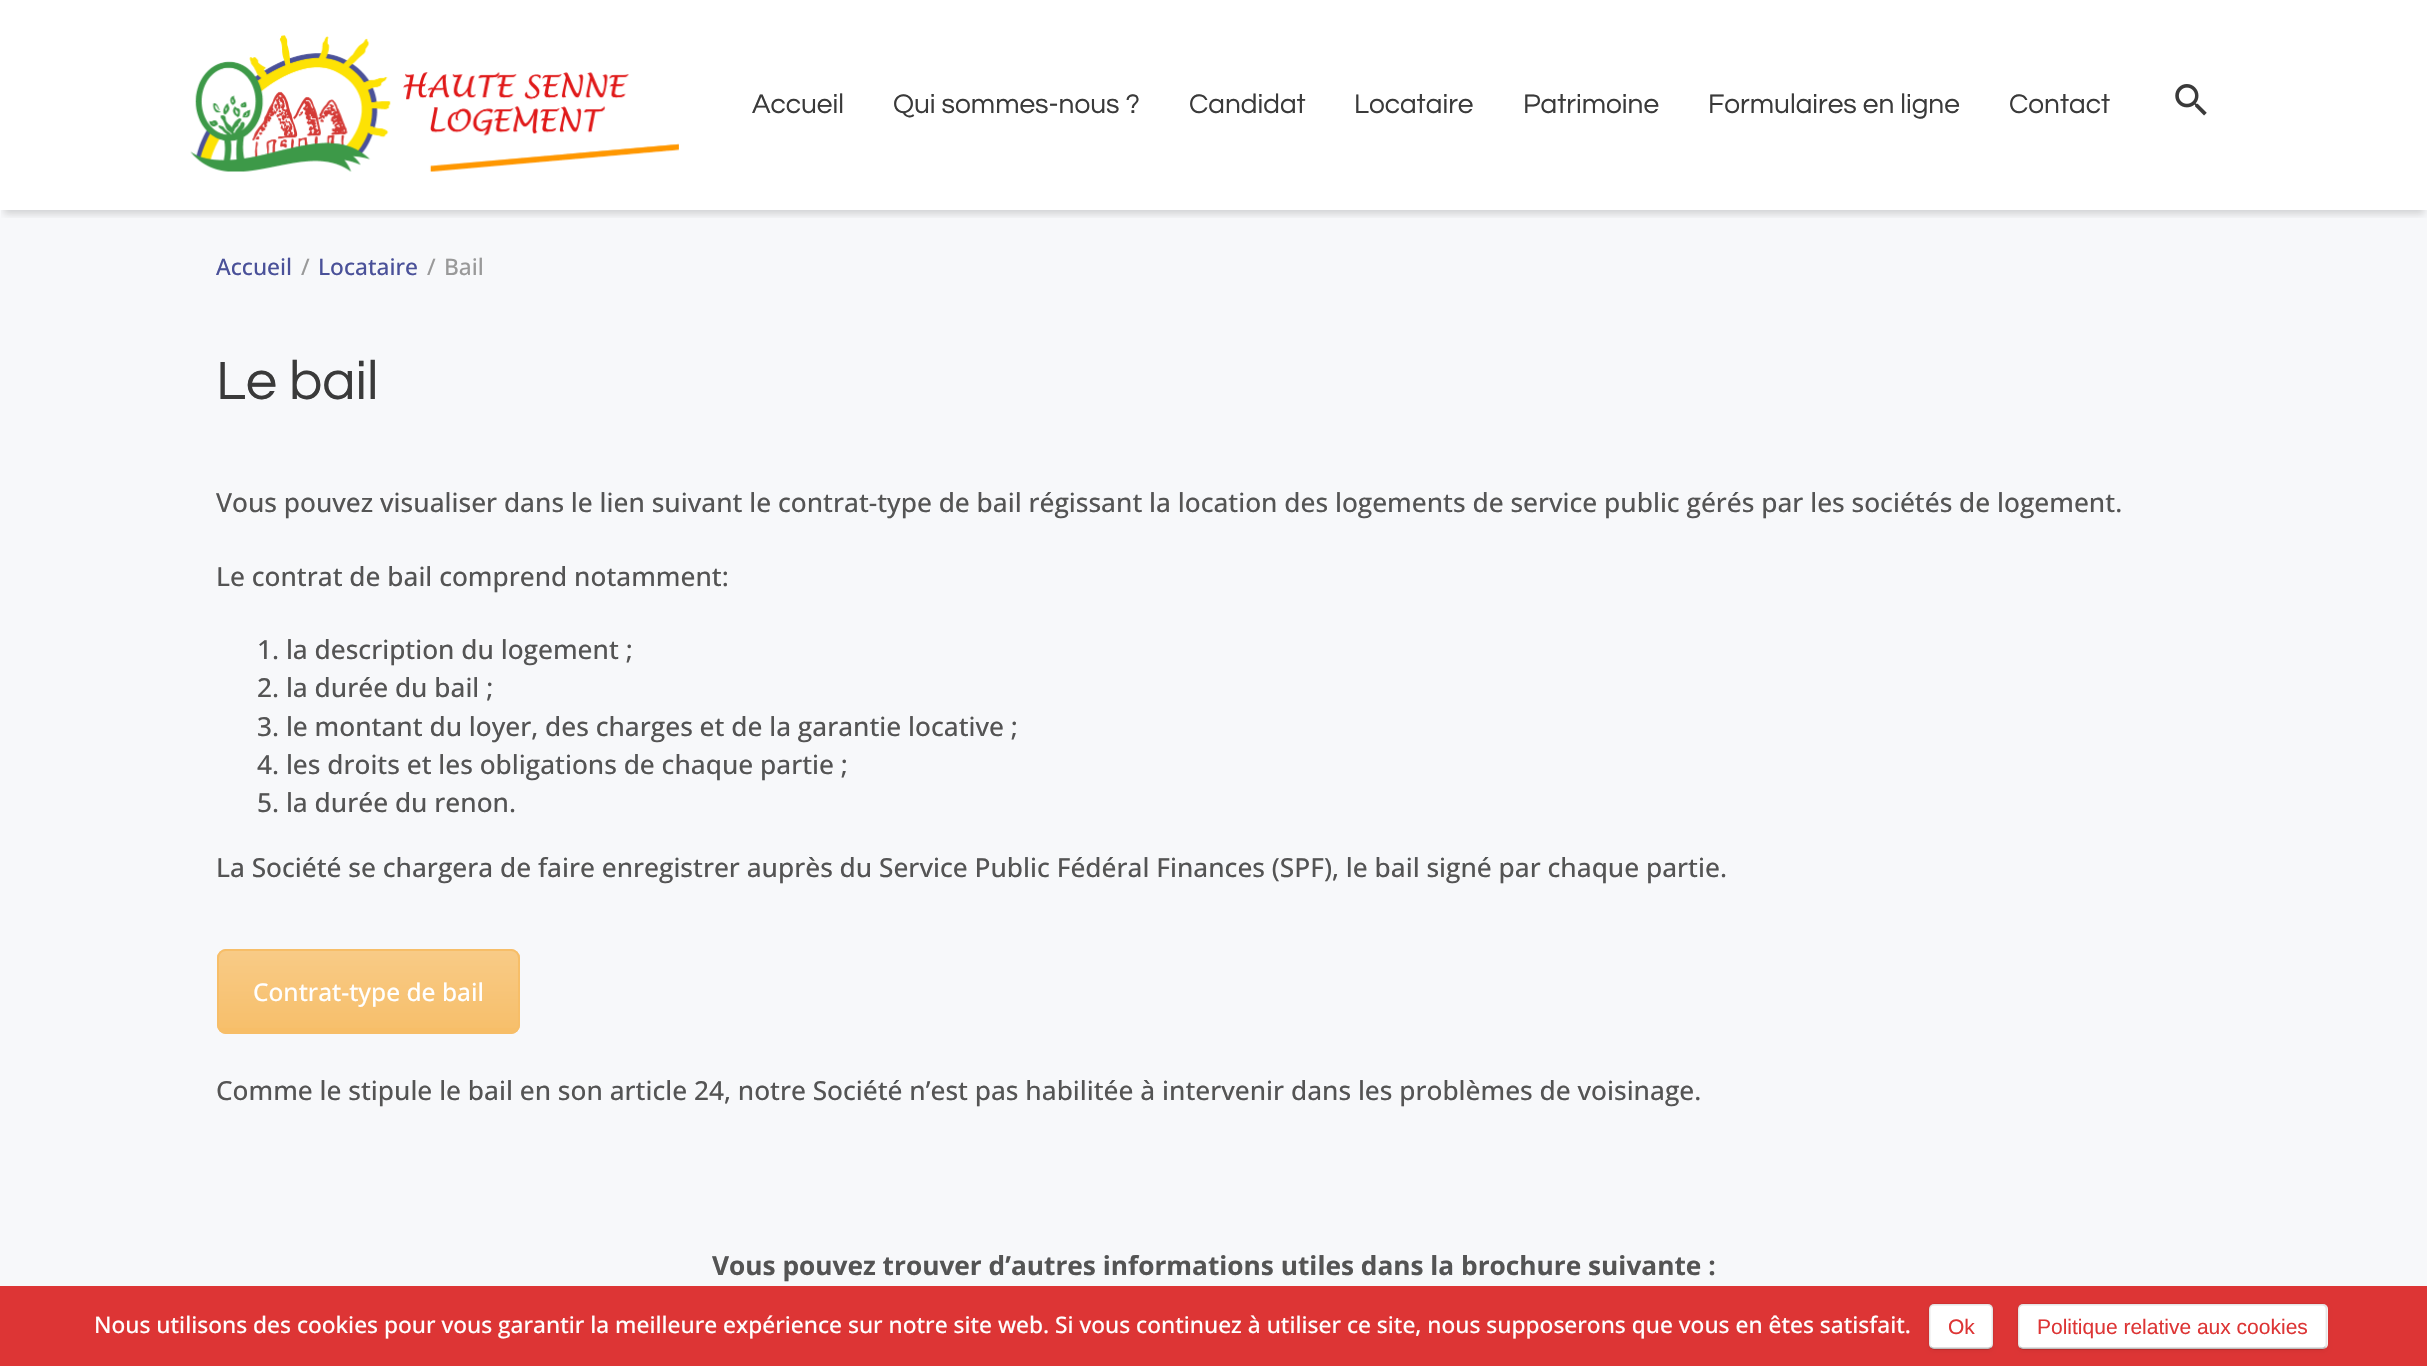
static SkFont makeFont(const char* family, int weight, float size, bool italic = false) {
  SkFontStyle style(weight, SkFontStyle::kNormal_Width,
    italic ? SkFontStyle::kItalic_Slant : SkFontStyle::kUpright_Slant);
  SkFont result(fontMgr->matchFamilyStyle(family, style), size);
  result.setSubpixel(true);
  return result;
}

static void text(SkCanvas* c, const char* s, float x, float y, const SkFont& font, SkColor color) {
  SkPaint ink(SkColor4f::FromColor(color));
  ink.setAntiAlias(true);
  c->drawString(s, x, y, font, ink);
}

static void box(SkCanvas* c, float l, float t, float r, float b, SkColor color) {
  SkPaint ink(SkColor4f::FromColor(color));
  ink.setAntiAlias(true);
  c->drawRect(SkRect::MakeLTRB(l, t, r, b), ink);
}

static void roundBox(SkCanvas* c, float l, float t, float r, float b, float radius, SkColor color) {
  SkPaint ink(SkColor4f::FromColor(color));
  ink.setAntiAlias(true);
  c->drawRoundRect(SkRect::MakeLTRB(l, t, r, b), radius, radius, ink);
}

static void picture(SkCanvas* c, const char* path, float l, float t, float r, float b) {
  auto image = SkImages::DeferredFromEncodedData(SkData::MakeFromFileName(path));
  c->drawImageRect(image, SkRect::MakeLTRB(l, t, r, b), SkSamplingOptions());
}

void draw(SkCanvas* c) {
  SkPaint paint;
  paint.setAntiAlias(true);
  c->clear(0xffffffff);
  box(c, 0, 210, 2427, 1286, 0xfff7f8fa);
  c->save();
  c->clipRect(SkRect::MakeLTRB(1, 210, 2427, 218));
  paint.setColor(0x26000000);
  paint.setMaskFilter(SkMaskFilter::MakeBlur(kNormal_SkBlurStyle, 3.5f));
  c->drawRect(SkRect::MakeLTRB(4, 11, 2424, 214), paint);
  paint.setMaskFilter(nullptr);
  c->restore();
  picture(c, "img_01.png", 190, 35, 679, 172);
  SkFont face1 = makeFont("Questrial", 400, 28);
  text(c, "Accueil", 752, 113, face1, 0xff3a3a3a);
  text(c, "Qui sommes-nous ?", 893, 113, face1, 0xff3a3a3a);
  text(c, "Candidat", 1189, 113, face1, 0xff3a3a3a);
  text(c, "Locataire", 1354, 113, face1, 0xff3a3a3a);
  text(c, "Patrimoine", 1523, 113, face1, 0xff3a3a3a);
  text(c, "Formulaires en ligne", 1708, 113, face1, 0xff3a3a3a);
  text(c, "Contact", 2009, 113, face1, 0xff3a3a3a);
  picture(c, "img_02.png", 2175, 84, 2207, 116);
  SkFont face2 = makeFont("Open Sans", 500, 22.75f);
  text(c, "Accueil", 216, 275, face2, 0xff4a5199);
  text(c, "/", 301, 275, face2, 0xff999999);
  text(c, "Locataire", 318, 275, face2, 0xff4a5199);
  text(c, "/", 427, 275, face2, 0xff999999);
  text(c, "Bail", 444, 275, face2, 0xff999999);
  SkFont face3 = makeFont("Questrial", 400, 56);
  text(c, "Le bail", 216, 399, face3, 0xff3a3a3a);
  SkFont face4 = makeFont("Open Sans", 500, 26.25f);
  text(c, "Vous pouvez visualiser dans le lien suivant le contrat-type de bail régissant la location des logements de service public gérés par les sociétés de logement.", 216, 512, face4, 0xff545454);
  text(c, "Le contrat de bail comprend notamment:", 216, 586, face4, 0xff545454);
  text(c, "1. la description du logement ;", 257, 659, face4, 0xff545454);
  text(c, "2. la durée du bail ;", 257, 697, face4, 0xff545454);
  text(c, "3. le montant du loyer, des charges et de la garantie locative ;", 257, 736, face4, 0xff545454);
  text(c, "4. les droits et les obligations de chaque partie ;", 257, 774, face4, 0xff545454);
  text(c, "5. la durée du renon.", 257, 812, face4, 0xff545454);
  text(c, "La Société se chargera de faire enregistrer auprès du Service Public Fédéral Finances (SPF), le bail signé par chaque partie.", 216, 877, face4, 0xff545454);
  roundBox(c, 217, 949, 520, 1034, 9, 0xfff7be68);
  c->save();
  c->clipPath(SkPathBuilder().moveTo(226, 949).lineTo(511, 949).cubicTo(516, 949, 520, 953, 520, 958).lineTo(520, 1025).cubicTo(520, 1030, 516, 1034, 511, 1034).lineTo(226, 1034).cubicTo(221, 1034, 217, 1030, 217, 1025).lineTo(217, 958).cubicTo(217, 953, 221, 949, 226, 949).close().detach(), true);
  {
    const SkColor colors[] = {0x33ffffff, 0x03ffffff};
    const float stops[] = {0, 1};
    const SkPoint ends[] = {{368, 950}, {368, 1033}};
    paint.setShader(SkGradientShader::MakeLinear(ends, colors, stops, 2, SkTileMode::kClamp));
    paint.setAlpha(255);
  }
  c->drawRect(SkRect::MakeLTRB(217, 950, 520, 1028), paint);
  c->restore();
  paint.setStyle(SkPaint::kStroke_Style);
  paint.setStrokeWidth(2);
  paint.setShader(nullptr);
  paint.setColor(0xfff7be68);
  c->drawRoundRect(SkRect::MakeLTRB(218, 950, 519, 1033), 8, 8, paint);
  SkFont face5 = makeFont("Open Sans", 500, 24.5f);
  text(c, "Contrat-type de bail", 253, 1001, face5, 0xffffffff);
  text(c, "Comme le stipule le bail en son article 24, notre Société n’est pas habilitée à intervenir dans les problèmes de voisinage.", 216, 1100, face4, 0xff545454);
  SkFont face6 = makeFont("Open Sans", 700, 26.25f);
  text(c, "Vous pouvez trouver d’autres informations utiles dans la brochure suivante :", 712, 1275, face6, 0xff545454);
  box(c, 0, 1286, 2427, 1366, 0xffdd3535);
  text(c, "Nous utilisons des cookies pour vous garantir la meilleure expérience sur notre site web. Si vous continuez à utiliser ce site, nous supposerons que vous en êtes satisfait.", 94, 1333, face2, 0xffffffff);
  paint.setStyle(SkPaint::kFill_Style);
  paint.setColor(0x0d000000);
  paint.setMaskFilter(SkMaskFilter::MakeBlur(kNormal_SkBlurStyle, 2));
  c->drawRoundRect(SkRect::MakeLTRB(1929, 1306, 1993, 1351), 5, 5, paint);
  paint.setMaskFilter(nullptr);
  roundBox(c, 1929, 1304, 1993, 1349, 5, 0xffffffff);
  paint.setStyle(SkPaint::kStroke_Style);
  paint.setStrokeWidth(1.8f);
  paint.setColor(0x40000000);
  c->drawPath(SkPathBuilder().moveTo(1991, 1347).cubicTo(1990.5f, 1348, 1989, 1348.5f, 1988, 1348.5f).lineTo(1934, 1348.5f).cubicTo(1932.5f, 1348.5f, 1931.5f, 1348, 1930.5f, 1347).detach(), paint);
  paint.setColor(0x1a000000);
  c->drawPath(SkPathBuilder().moveTo(1930.5f, 1347).cubicTo(1930, 1346.5f, 1929.5f, 1345, 1929.5f, 1344).lineTo(1929.5f, 1309).cubicTo(1929.5f, 1308, 1930, 1306.5f, 1930.5f, 1306).cubicTo(1931.5f, 1305, 1932.5f, 1304.5f, 1934, 1304.5f).lineTo(1988, 1304.5f).cubicTo(1989, 1304.5f, 1990.5f, 1305, 1991, 1306).cubicTo(1992, 1306.5f, 1992.5f, 1308, 1992.5f, 1309).lineTo(1992.5f, 1344).cubicTo(1992.5f, 1345, 1992, 1346.5f, 1991, 1347).detach(), paint);
  SkFont face7 = makeFont("Liberation Sans", 400, 21);
  text(c, "Ok", 1948, 1334, face7, 0xffdd3535);
  paint.setStyle(SkPaint::kFill_Style);
  paint.setColor(0x0d000000);
  paint.setMaskFilter(SkMaskFilter::MakeBlur(kNormal_SkBlurStyle, 2));
  c->drawRoundRect(SkRect::MakeLTRB(2018, 1306, 2328, 1351), 5, 5, paint);
  paint.setMaskFilter(nullptr);
  roundBox(c, 2018, 1304, 2328, 1349, 5, 0xffffffff);
  paint.setStyle(SkPaint::kStroke_Style);
  paint.setColor(0x40000000);
  c->drawPath(SkPathBuilder().moveTo(2325.5f, 1347).cubicTo(2324.5f, 1348, 2323.5f, 1348.5f, 2322, 1348.5f).lineTo(2023, 1348.5f).cubicTo(2022, 1348.5f, 2020.5f, 1348, 2020, 1347).detach(), paint);
  paint.setColor(0x1a000000);
  c->drawPath(SkPathBuilder().moveTo(2020, 1347).cubicTo(2019, 1346.5f, 2018.5f, 1345, 2018.5f, 1344).lineTo(2018.5f, 1309).cubicTo(2018.5f, 1308, 2019, 1306.5f, 2020, 1306).cubicTo(2020.5f, 1305, 2022, 1304.5f, 2023, 1304.5f).lineTo(2322, 1304.5f).cubicTo(2323.5f, 1304.5f, 2324.5f, 1305, 2325.5f, 1306).cubicTo(2326, 1306.5f, 2326.5f, 1308, 2326.5f, 1309).lineTo(2326.5f, 1344).cubicTo(2326.5f, 1345, 2326, 1346.5f, 2325.5f, 1347).detach(), paint);
  text(c, "Politique relative aux cookies", 2037, 1334, face7, 0xffdd3535);
}
